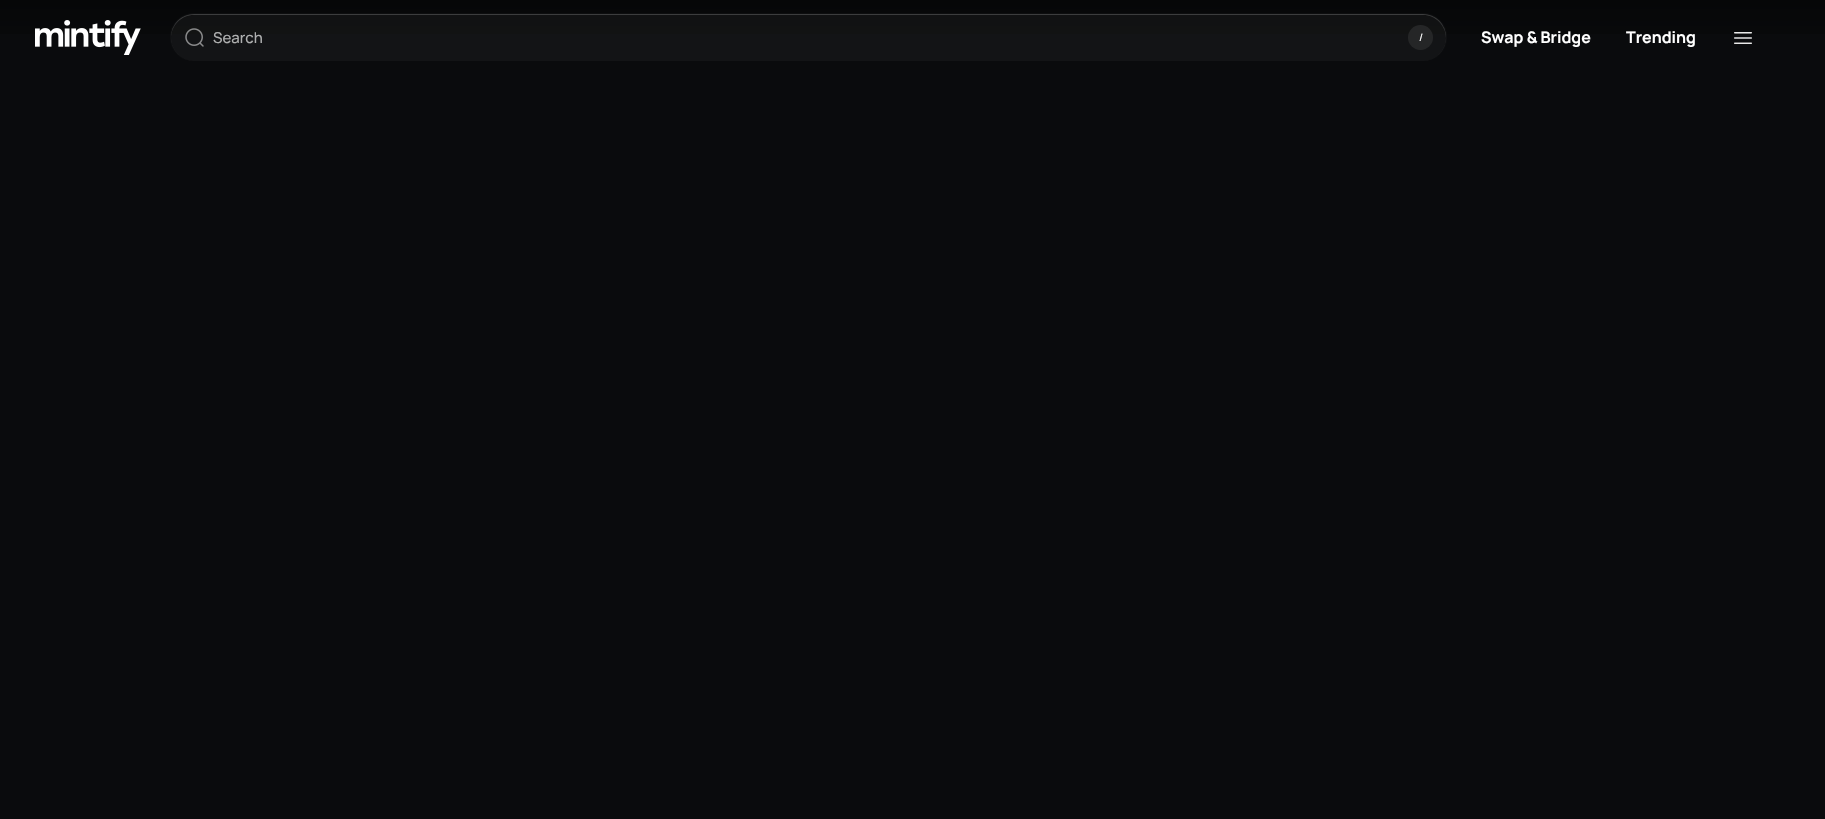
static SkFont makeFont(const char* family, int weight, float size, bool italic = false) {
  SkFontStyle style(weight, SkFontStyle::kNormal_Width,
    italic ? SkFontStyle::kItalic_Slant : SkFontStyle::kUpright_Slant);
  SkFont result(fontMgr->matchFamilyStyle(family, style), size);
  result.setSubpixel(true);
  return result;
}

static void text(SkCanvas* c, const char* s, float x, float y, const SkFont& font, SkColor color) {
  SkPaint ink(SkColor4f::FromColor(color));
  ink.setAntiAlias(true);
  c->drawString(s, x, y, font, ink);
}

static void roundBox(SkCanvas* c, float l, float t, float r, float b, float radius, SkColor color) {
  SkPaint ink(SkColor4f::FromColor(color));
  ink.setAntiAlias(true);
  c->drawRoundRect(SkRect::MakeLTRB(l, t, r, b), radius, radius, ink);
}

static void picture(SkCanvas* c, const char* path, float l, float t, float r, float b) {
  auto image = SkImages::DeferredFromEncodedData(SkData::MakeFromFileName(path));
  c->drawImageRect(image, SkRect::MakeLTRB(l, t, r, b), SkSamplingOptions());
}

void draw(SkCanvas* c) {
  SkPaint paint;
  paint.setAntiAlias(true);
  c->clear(0xff0a0b0d);
  {
    const SkColor colors[] = {0xff060708, 0xff0a0b0d};
    const float stops[] = {0.01f, 0.9f};
    const SkPoint ends[] = {{913, 0}, {913, 75}};
    paint.setShader(SkGradientShader::MakeLinear(ends, colors, stops, 2, SkTileMode::kClamp));
    paint.setAlpha(255);
  }
  c->drawRect(SkRect::MakeLTRB(0, 0, 1825, 34), paint);
  picture(c, "img_01.png", 35, 20, 141, 55);
  c->save();
  c->clipPath(SkPathBuilder(SkPathFillType::kEvenOdd).moveTo(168, 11).lineTo(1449, 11).lineTo(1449, 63).lineTo(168, 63).close().moveTo(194, 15).lineTo(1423, 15).cubicTo(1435.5f, 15, 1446, 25.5f, 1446, 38).cubicTo(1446, 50.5f, 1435.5f, 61, 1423, 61).lineTo(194, 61).cubicTo(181.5f, 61, 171, 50.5f, 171, 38).cubicTo(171, 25.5f, 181.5f, 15, 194, 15).close().detach(), true);
  paint.setShader(nullptr);
  paint.setColor(0x3dffffff);
  paint.setMaskFilter(SkMaskFilter::MakeBlur(kNormal_SkBlurStyle, 0.5f));
  c->drawRoundRect(SkRect::MakeLTRB(171, 14, 1446, 60), 23, 23, paint);
  paint.setMaskFilter(nullptr);
  c->restore();
  roundBox(c, 171, 15, 1446, 61, 23, 0x33373839);
  picture(c, "img_02.png", 185, 28, 204, 47);
  SkFont face1 = makeFont("Manrope", 500, 15);
  text(c, "Search", 213, 43, face1, 0xffaeafaf);
  paint.setColor(0xff252627);
  c->drawCircle(1420.5f, 37.5f, 12.5f, paint);
  SkFont face2 = makeFont("Manrope", 500, 10);
  text(c, "/", 1419, 41, face2, 0xffffffff);
  SkFont face3 = makeFont("Manrope", 700, 16);
  text(c, "Swap & Bridge", 1481, 43, face3, 0xffffffff);
  text(c, "Trending", 1626, 43, face3, 0xffffffff);
  picture(c, "img_03.png", 1734, 32, 1752, 44);
}
